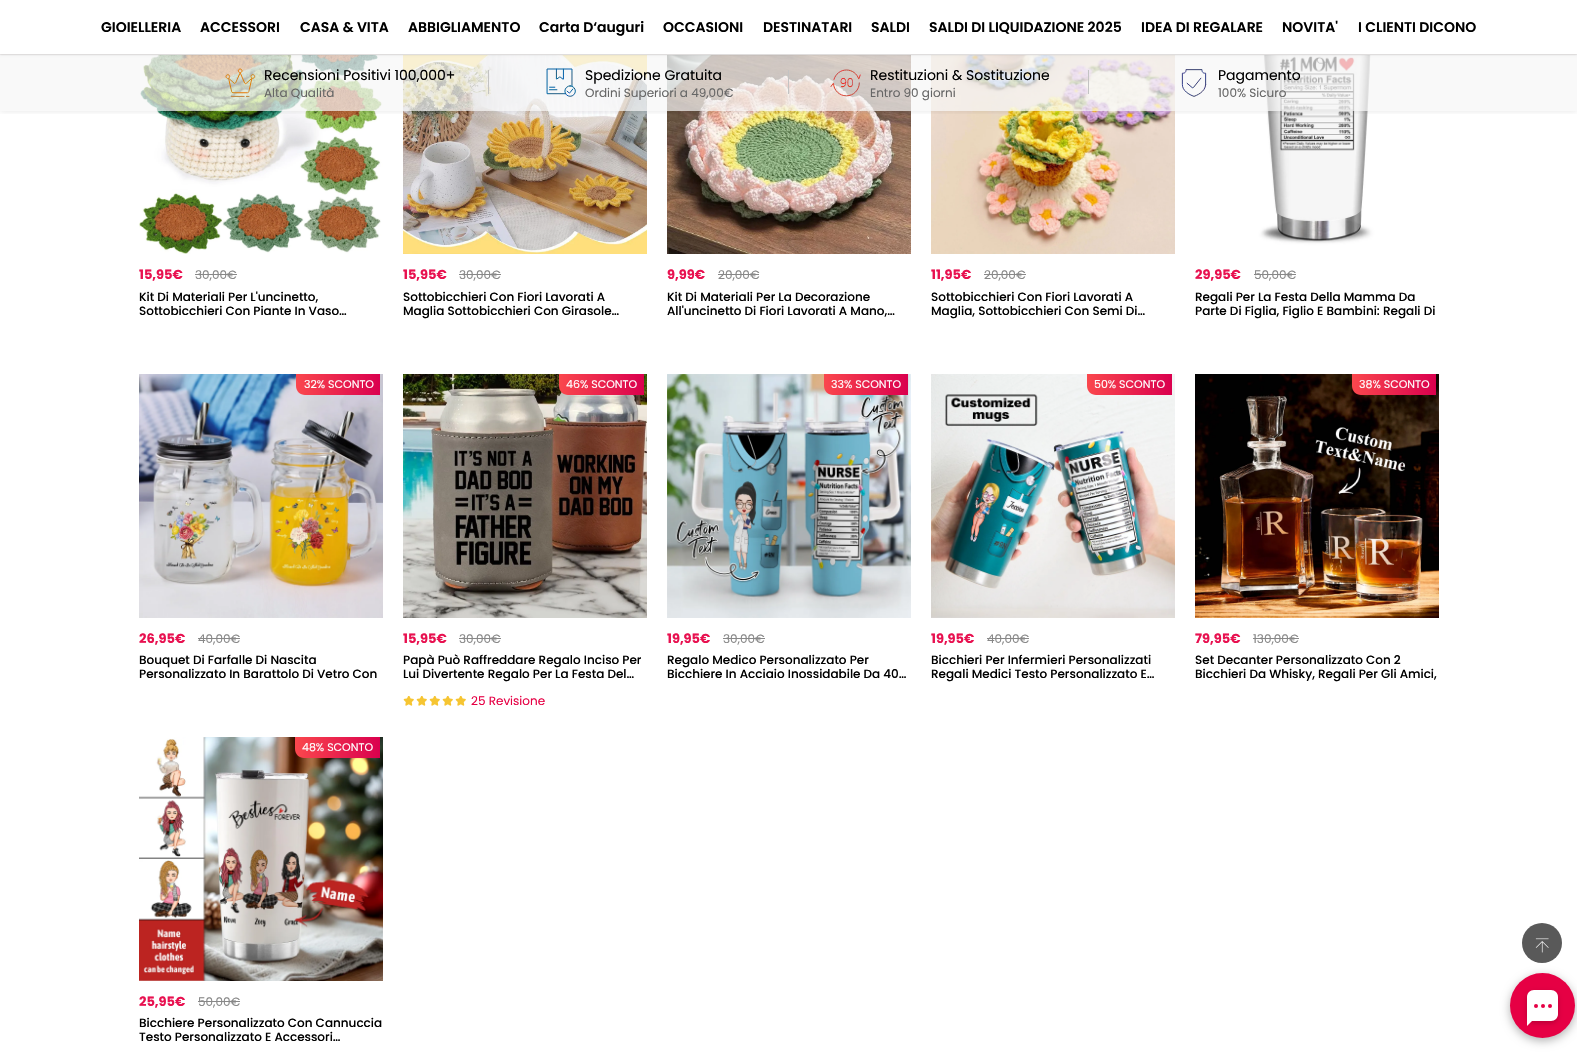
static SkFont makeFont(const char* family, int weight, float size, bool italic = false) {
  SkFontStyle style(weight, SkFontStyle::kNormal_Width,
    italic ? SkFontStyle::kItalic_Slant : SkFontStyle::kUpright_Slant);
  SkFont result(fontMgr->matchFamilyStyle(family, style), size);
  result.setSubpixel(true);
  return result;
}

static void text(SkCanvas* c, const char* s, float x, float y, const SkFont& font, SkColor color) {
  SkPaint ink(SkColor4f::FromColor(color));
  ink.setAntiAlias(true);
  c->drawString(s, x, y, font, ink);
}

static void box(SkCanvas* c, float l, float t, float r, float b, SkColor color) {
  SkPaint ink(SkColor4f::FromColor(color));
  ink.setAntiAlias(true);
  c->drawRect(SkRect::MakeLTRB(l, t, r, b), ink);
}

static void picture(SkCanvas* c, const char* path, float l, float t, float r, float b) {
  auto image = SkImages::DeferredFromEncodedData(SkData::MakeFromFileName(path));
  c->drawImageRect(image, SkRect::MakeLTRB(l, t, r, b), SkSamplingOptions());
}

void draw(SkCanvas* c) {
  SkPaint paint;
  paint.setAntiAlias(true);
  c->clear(0xffffffff);
  picture(c, "img_06.png", 139, 55, 383, 254);
  picture(c, "img_07.png", 403, 55, 647, 254);
  picture(c, "img_08.png", 667, 55, 911, 254);
  picture(c, "img_09.png", 931, 55, 1175, 254);
  picture(c, "img_10.png", 1195, 55, 1439, 254);
  c->save();
  c->clipRect(SkRect::MakeLTRB(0, 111, 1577, 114));
  paint.setColor(0x1a000000);
  paint.setMaskFilter(SkMaskFilter::MakeBlur(kNormal_SkBlurStyle, 3));
  c->drawRect(SkRect::MakeLTRB(0, 54, 1577, 111), paint);
  paint.setMaskFilter(nullptr);
  c->restore();
  box(c, 0, 55, 1577, 111, 0xb3f6f6f6);
  box(c, 0, 54, 1577, 55, 0xfff0eeee);
  paint.setMaskFilter(SkMaskFilter::MakeBlur(kNormal_SkBlurStyle, 1));
  c->drawRect(SkRect::MakeLTRB(0, 1, 1577, 55), paint);
  paint.setMaskFilter(nullptr);
  box(c, 0, 0, 1577, 54, 0xffffffff);
  SkFont face1 = makeFont("Poppins", 600, 14);
  text(c, "GIOIELLERIA", 101, 32, face1, 0xff000000);
  text(c, "ACCESSORI", 200, 32, face1, 0xff000000);
  text(c, "CASA & VITA", 300, 32, face1, 0xff000000);
  text(c, "ABBIGLIAMENTO", 408, 32, face1, 0xff000000);
  text(c, "Carta D‘auguri", 539, 32, face1, 0xff000000);
  text(c, "OCCASIONI", 663, 32, face1, 0xff000000);
  text(c, "DESTINATARI", 763, 32, face1, 0xff000000);
  text(c, "SALDI", 871, 32, face1, 0xff000000);
  text(c, "SALDI DI LIQUIDAZIONE 2025", 929, 32, face1, 0xff000000);
  text(c, "IDEA DI REGALARE", 1141, 32, face1, 0xff000000);
  text(c, "NOVITA'", 1282, 32, face1, 0xff000000);
  text(c, "I CLIENTI DICONO", 1358, 32, face1, 0xff000000);
  paint.setColor(0x4d000000);
  paint.setMaskFilter(SkMaskFilter::MakeBlur(kNormal_SkBlurStyle, 5));
  c->drawRoundRect(SkRect::MakeLTRB(1510, 976, 1575, 1041), 32.5f, 32.5f, paint);
  paint.setMaskFilter(nullptr);
  paint.setColor(0xff595959);
  c->drawCircle(1542, 943, 20, paint);
  picture(c, "img_01.png", 1535, 938, 1549, 953);
  picture(c, "img_02.png", 225, 68, 256, 97);
  SkFont face2 = makeFont("Poppins", 400, 14);
  text(c, "Recensioni Positivi 100,000+", 264, 80, face2, 0xff000000);
  SkFont face3 = makeFont("Poppins", 400, 12);
  text(c, "Alta Qualità", 264, 97, face3, 0xff666666);
  box(c, 488, 70, 489, 94, 0xffc3c3c3);
  picture(c, "img_03.png", 546, 68, 576, 97);
  text(c, "Spedizione Gratuita", 585, 80, face2, 0xff000000);
  text(c, "Ordini Superiori a 49,00€", 585, 97, face3, 0xff666666);
  box(c, 788, 70, 789, 94, 0xffc3c3c3);
  picture(c, "img_04.png", 830, 69, 861, 97);
  text(c, "Restituzioni & Sostituzione", 870, 80, face2, 0xff000000);
  text(c, "Entro 90 giorni", 870, 97, face3, 0xff666666);
  box(c, 1088, 70, 1089, 94, 0xffc3c3c3);
  picture(c, "img_05.png", 1181, 69, 1207, 97);
  text(c, "Pagamento", 1218, 80, face2, 0xff000000);
  text(c, "100% Sicuro", 1218, 97, face3, 0xff666666);
  SkFont face4 = makeFont("Poppins", 700, 13);
  text(c, "15,95€", 139, 279, face4, 0xffe81150);
  text(c, "30,00€", 195, 279, face3, 0xff888888);
  box(c, 195, 274, 237, 275, 0xff888888);
  SkFont face5 = makeFont("Poppins", 500, 12);
  text(c, "Kit Di Materiali Per L'uncinetto,", 139, 301, face5, 0xff000000);
  text(c, "Sottobicchieri Con Piante In Vaso…", 139, 315, face5, 0xff000000);
  text(c, "15,95€", 403, 279, face4, 0xffe81150);
  text(c, "30,00€", 459, 279, face3, 0xff888888);
  box(c, 459, 274, 501, 275, 0xff888888);
  text(c, "Sottobicchieri Con Fiori Lavorati A", 403, 301, face5, 0xff000000);
  text(c, "Maglia Sottobicchieri Con Girasole…", 403, 315, face5, 0xff000000);
  text(c, "9,99€", 667, 279, face4, 0xffe81150);
  text(c, "20,00€", 718, 279, face3, 0xff888888);
  box(c, 718, 274, 759, 275, 0xff888888);
  text(c, "Kit Di Materiali Per La Decorazione", 667, 301, face5, 0xff000000);
  text(c, "All'uncinetto Di Fiori Lavorati A Mano,…", 667, 315, face5, 0xff000000);
  text(c, "11,95€", 931, 279, face4, 0xffe81150);
  text(c, "20,00€", 984, 279, face3, 0xff888888);
  box(c, 984, 274, 1026, 275, 0xff888888);
  text(c, "Sottobicchieri Con Fiori Lavorati A", 931, 301, face5, 0xff000000);
  text(c, "Maglia, Sottobicchieri Con Semi Di…", 931, 315, face5, 0xff000000);
  text(c, "29,95€", 1195, 279, face4, 0xffe81150);
  text(c, "50,00€", 1254, 279, face3, 0xff888888);
  box(c, 1254, 274, 1296, 275, 0xff888888);
  text(c, "Regali Per La Festa Della Mamma Da", 1195, 301, face5, 0xff000000);
  text(c, "Parte Di Figlia, Figlio E Bambini: Regali Di", 1195, 315, face5, 0xff000000);
  picture(c, "img_11.png", 139, 374, 383, 618);
  {
    const SkColor colors[] = {0xffda004e, 0xfffa474d};
    const float stops[] = {0, 1};
    const SkPoint ends[] = {{380, 384}, {296, 384}};
    paint.setShader(SkGradientShader::MakeLinear(ends, colors, stops, 2, SkTileMode::kClamp));
    paint.setAlpha(255);
  }
  c->drawPath(SkPathBuilder().moveTo(296, 374).lineTo(380, 374).lineTo(380, 395).lineTo(305, 395).cubicTo(300, 395, 296, 391, 296, 386).close().detach(), paint);
  SkFont face6 = makeFont("Poppins", 400, 11);
  text(c, "32% SCONTO", 304, 388, face6, 0xffffffff);
  text(c, "26,95€", 139, 643, face4, 0xffe81150);
  text(c, "40,00€", 198, 643, face3, 0xff888888);
  box(c, 198, 638, 240, 639, 0xff888888);
  text(c, "Bouquet Di Farfalle Di Nascita", 139, 664, face5, 0xff000000);
  text(c, "Personalizzato In Barattolo Di Vetro Con", 139, 678, face5, 0xff000000);
  picture(c, "img_12.png", 403, 374, 647, 618);
  {
    const SkColor colors[] = {0xffda004e, 0xfffa474d};
    const float stops[] = {0, 1};
    const SkPoint ends[] = {{644, 384}, {559, 384}};
    paint.setShader(SkGradientShader::MakeLinear(ends, colors, stops, 2, SkTileMode::kClamp));
    paint.setAlpha(255);
  }
  c->drawPath(SkPathBuilder().moveTo(559, 374).lineTo(644, 374).lineTo(644, 395).lineTo(568, 395).cubicTo(563, 395, 559, 391, 559, 386).close().detach(), paint);
  text(c, "46% SCONTO", 566, 388, face6, 0xffffffff);
  text(c, "15,95€", 403, 643, face4, 0xffe81150);
  text(c, "30,00€", 459, 643, face3, 0xff888888);
  box(c, 459, 638, 501, 639, 0xff888888);
  text(c, "Papà Può Raffreddare Regalo Inciso Per", 403, 664, face5, 0xff000000);
  text(c, "Lui Divertente Regalo Per La Festa Del…", 403, 678, face5, 0xff000000);
  picture(c, "img_13.png", 403, 696, 414, 706);
  picture(c, "img_13.png", 416, 696, 427, 706);
  picture(c, "img_13.png", 429, 696, 440, 706);
  picture(c, "img_13.png", 442, 696, 453, 706);
  picture(c, "img_13.png", 455, 696, 466, 706);
  text(c, "25 Revisione", 471, 705, face3, 0xffe60044);
  picture(c, "img_14.png", 667, 374, 911, 618);
  {
    const SkColor colors[] = {0xffda004e, 0xfffa474d};
    const float stops[] = {0, 1};
    const SkPoint ends[] = {{908, 384}, {824, 384}};
    paint.setShader(SkGradientShader::MakeLinear(ends, colors, stops, 2, SkTileMode::kClamp));
    paint.setAlpha(255);
  }
  c->drawPath(SkPathBuilder().moveTo(824, 374).lineTo(908, 374).lineTo(908, 395).lineTo(833, 395).cubicTo(828, 395, 824, 391, 824, 386).close().detach(), paint);
  text(c, "33% SCONTO", 831, 388, face6, 0xffffffff);
  text(c, "19,95€", 667, 643, face4, 0xffe81150);
  text(c, "30,00€", 723, 643, face3, 0xff888888);
  box(c, 723, 638, 765, 639, 0xff888888);
  text(c, "Regalo Medico Personalizzato Per", 667, 664, face5, 0xff000000);
  text(c, "Bicchiere In Acciaio Inossidabile Da 40…", 667, 678, face5, 0xff000000);
  picture(c, "img_15.png", 931, 374, 1175, 618);
  {
    const SkColor colors[] = {0xffda004e, 0xfffa474d};
    const float stops[] = {0, 1};
    const SkPoint ends[] = {{1172, 384}, {1087, 384}};
    paint.setShader(SkGradientShader::MakeLinear(ends, colors, stops, 2, SkTileMode::kClamp));
    paint.setAlpha(255);
  }
  c->drawPath(SkPathBuilder().moveTo(1087, 374).lineTo(1172, 374).lineTo(1172, 395).lineTo(1096, 395).cubicTo(1091, 395, 1087, 391, 1087, 386).close().detach(), paint);
  text(c, "50% SCONTO", 1094, 388, face6, 0xffffffff);
  text(c, "19,95€", 931, 643, face4, 0xffe81150);
  text(c, "40,00€", 987, 643, face3, 0xff888888);
  box(c, 987, 638, 1029, 639, 0xff888888);
  text(c, "Bicchieri Per Infermieri Personalizzati", 931, 664, face5, 0xff000000);
  text(c, "Regali Medici Testo Personalizzato E…", 931, 678, face5, 0xff000000);
  picture(c, "img_16.png", 1195, 374, 1439, 618);
  {
    const SkColor colors[] = {0xffda004e, 0xfffa474d};
    const float stops[] = {0, 1};
    const SkPoint ends[] = {{1436, 384}, {1352, 384}};
    paint.setShader(SkGradientShader::MakeLinear(ends, colors, stops, 2, SkTileMode::kClamp));
    paint.setAlpha(255);
  }
  c->drawPath(SkPathBuilder().moveTo(1352, 374).lineTo(1436, 374).lineTo(1436, 395).lineTo(1361, 395).cubicTo(1356, 395, 1352, 391, 1352, 386).close().detach(), paint);
  text(c, "38% SCONTO", 1359, 388, face6, 0xffffffff);
  text(c, "79,95€", 1195, 643, face4, 0xffe81150);
  text(c, "130,00€", 1253, 643, face3, 0xff888888);
  box(c, 1253, 638, 1299, 639, 0xff888888);
  text(c, "Set Decanter Personalizzato Con 2", 1195, 664, face5, 0xff000000);
  text(c, "Bicchieri Da Whisky, Regali Per Gli Amici,", 1195, 678, face5, 0xff000000);
  picture(c, "img_17.png", 139, 737, 383, 981);
  {
    const SkColor colors[] = {0xffda004e, 0xfffa474d};
    const float stops[] = {0, 1};
    const SkPoint ends[] = {{380, 747}, {295, 747}};
    paint.setShader(SkGradientShader::MakeLinear(ends, colors, stops, 2, SkTileMode::kClamp));
    paint.setAlpha(255);
  }
  c->drawPath(SkPathBuilder().moveTo(295, 737).lineTo(380, 737).lineTo(380, 758).lineTo(304, 758).cubicTo(299, 758, 295, 754, 295, 749).close().detach(), paint);
  text(c, "48% SCONTO", 302, 751, face6, 0xffffffff);
  text(c, "25,95€", 139, 1006, face4, 0xffe81150);
  text(c, "50,00€", 198, 1006, face3, 0xff888888);
  box(c, 198, 1001, 240, 1002, 0xff888888);
  text(c, "Bicchiere Personalizzato Con Cannuccia", 139, 1027, face5, 0xff000000);
  text(c, "Testo Personalizzato E Accessori…", 139, 1041, face5, 0xff000000);
  paint.setShader(nullptr);
  paint.setColor(0xffe60044);
  c->drawCircle(1542.5f, 1005.5f, 32.5f, paint);
  paint.setColor(0x33000000);
  paint.setMaskFilter(SkMaskFilter::MakeBlur(kNormal_SkBlurStyle, 2.5f));
  c->drawRoundRect(SkRect::MakeLTRB(1527, 992, 1558, 1023), 7, 7, paint);
  paint.setMaskFilter(nullptr);
  paint.setColor(0xffffffff);
  c->drawPath(SkPathBuilder().moveTo(1534, 990).lineTo(1551, 990).cubicTo(1555, 990, 1558, 993, 1558, 997).lineTo(1558, 1014).cubicTo(1558, 1018, 1555, 1021, 1551, 1021).lineTo(1527, 1021).lineTo(1527, 997).cubicTo(1527, 993, 1530, 990, 1534, 990).close().detach(), paint);
  paint.setColor(0xffe60044);
  c->drawCircle(1536, 1006, 2, paint);
  c->drawCircle(1543, 1006, 2, paint);
  c->drawCircle(1550, 1006, 2, paint);
  paint.setColor(0xffffffff);
  c->drawPath(SkPathBuilder().moveTo(1527, 1026).lineTo(1527, 1016).lineTo(1537, 1016).close().detach(), paint);
}
